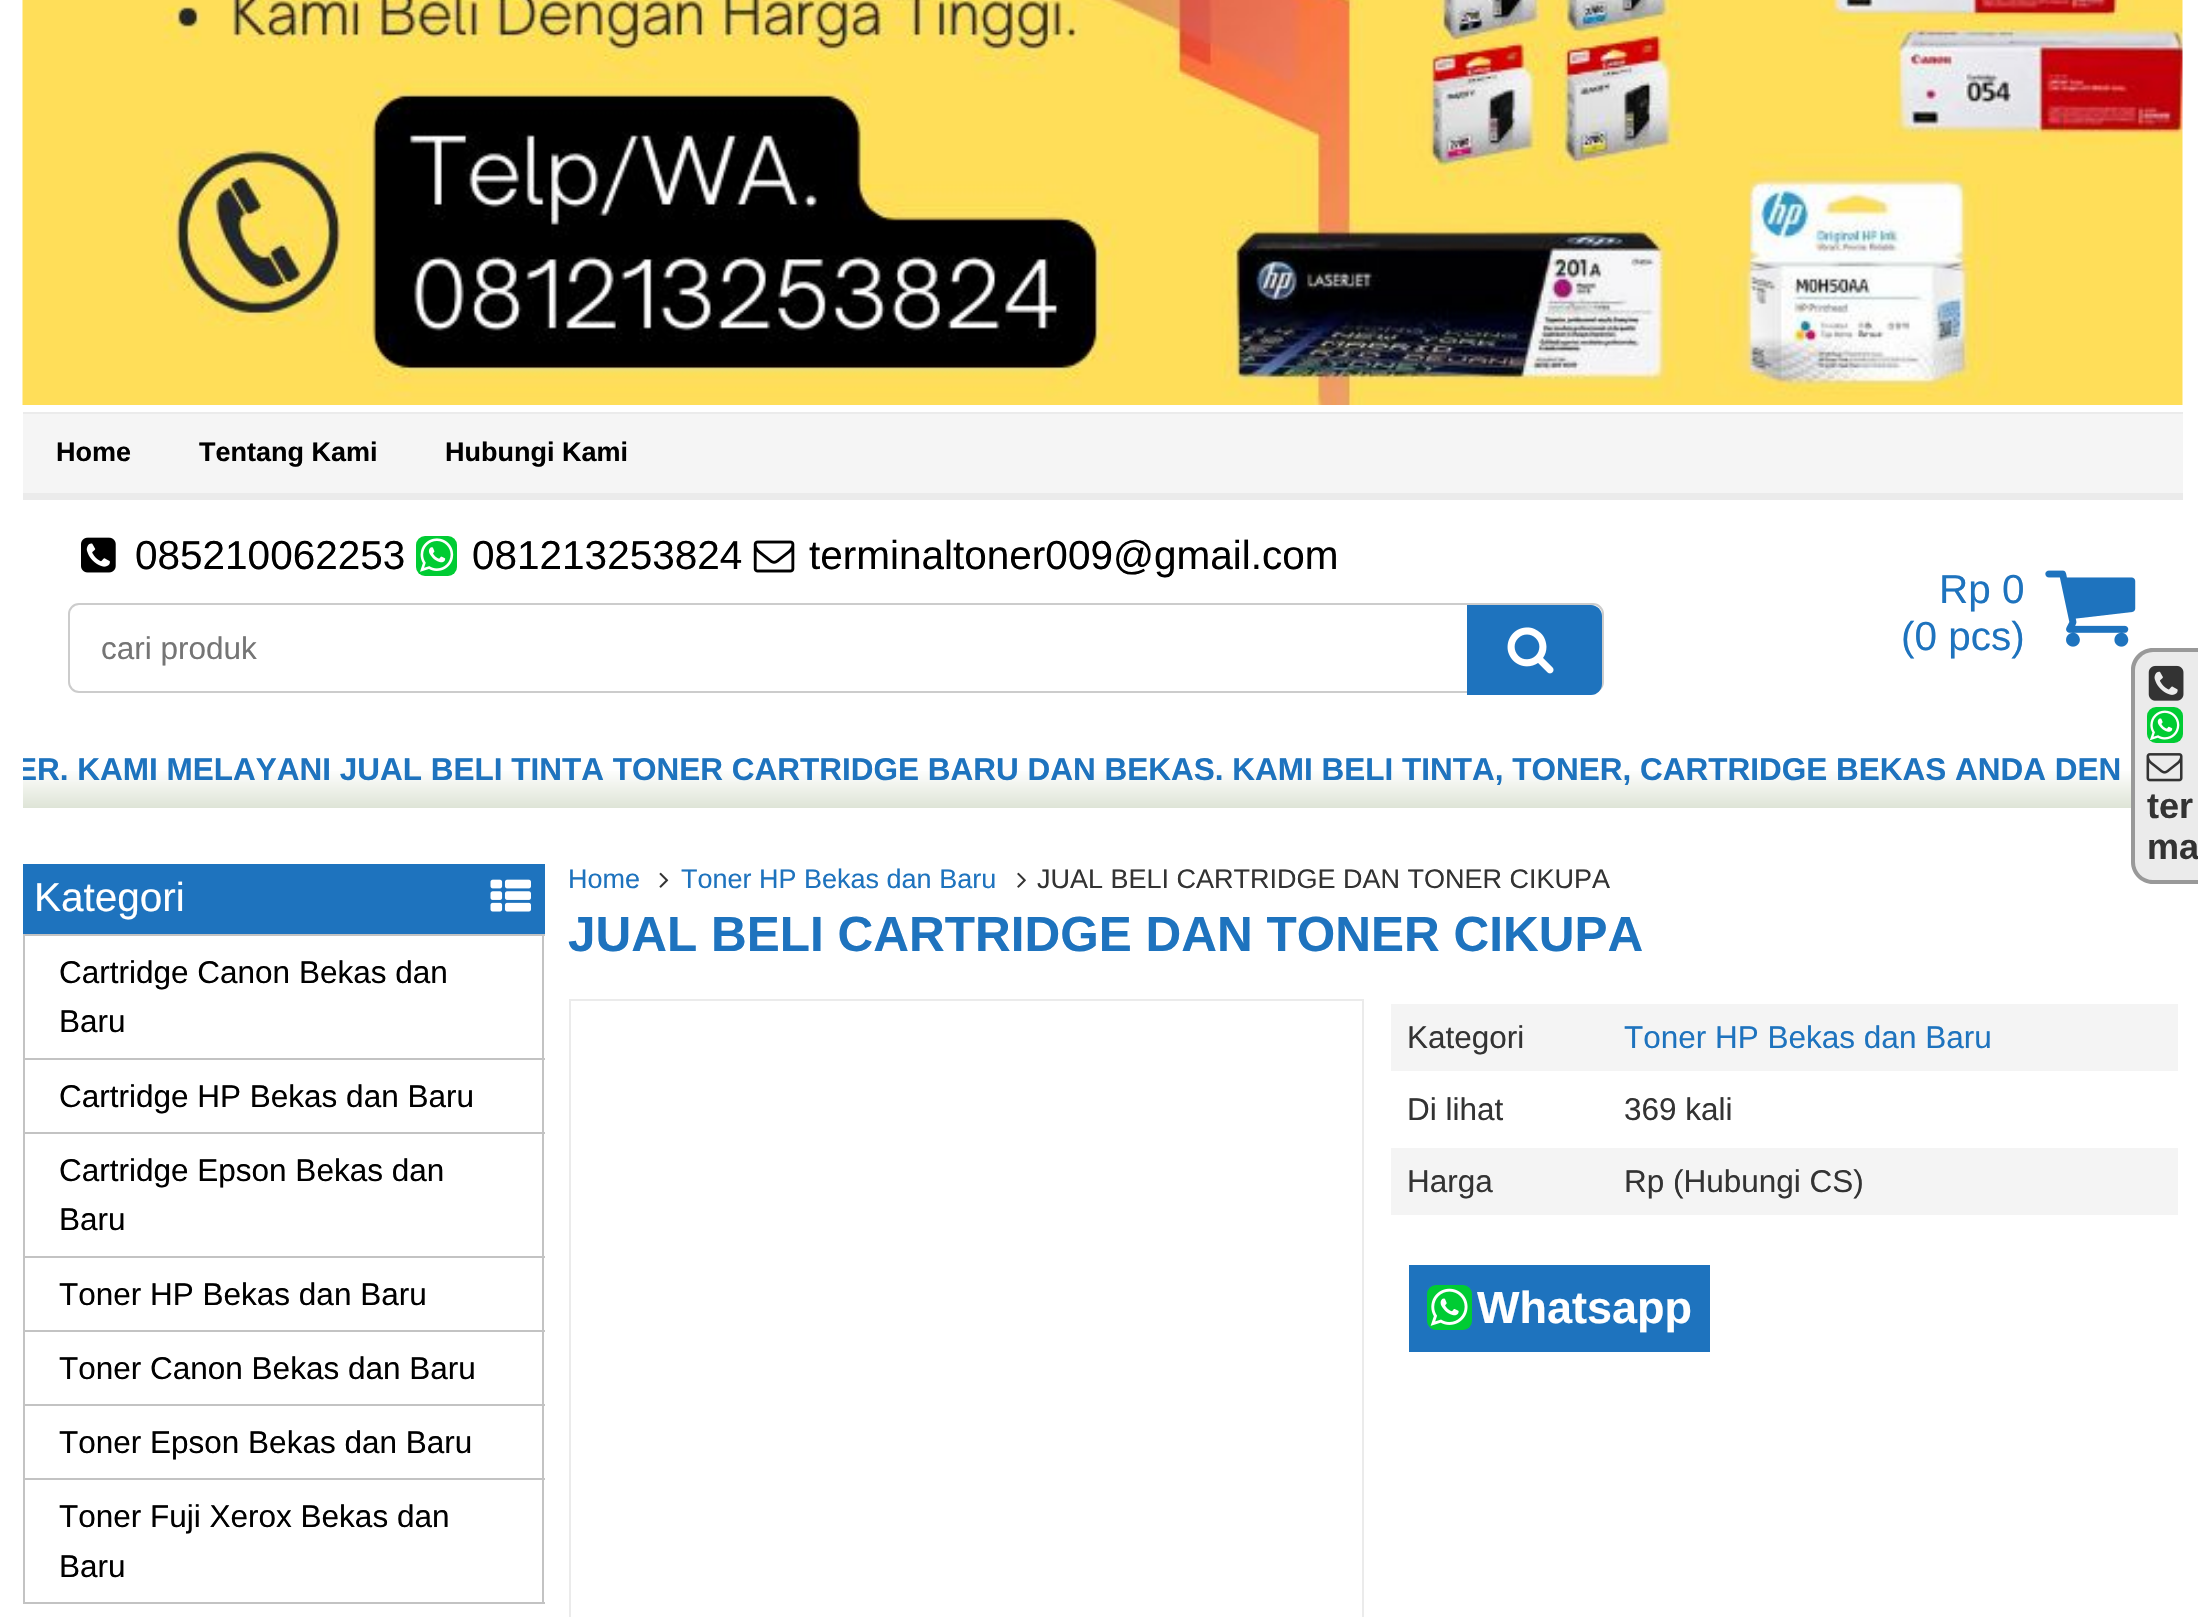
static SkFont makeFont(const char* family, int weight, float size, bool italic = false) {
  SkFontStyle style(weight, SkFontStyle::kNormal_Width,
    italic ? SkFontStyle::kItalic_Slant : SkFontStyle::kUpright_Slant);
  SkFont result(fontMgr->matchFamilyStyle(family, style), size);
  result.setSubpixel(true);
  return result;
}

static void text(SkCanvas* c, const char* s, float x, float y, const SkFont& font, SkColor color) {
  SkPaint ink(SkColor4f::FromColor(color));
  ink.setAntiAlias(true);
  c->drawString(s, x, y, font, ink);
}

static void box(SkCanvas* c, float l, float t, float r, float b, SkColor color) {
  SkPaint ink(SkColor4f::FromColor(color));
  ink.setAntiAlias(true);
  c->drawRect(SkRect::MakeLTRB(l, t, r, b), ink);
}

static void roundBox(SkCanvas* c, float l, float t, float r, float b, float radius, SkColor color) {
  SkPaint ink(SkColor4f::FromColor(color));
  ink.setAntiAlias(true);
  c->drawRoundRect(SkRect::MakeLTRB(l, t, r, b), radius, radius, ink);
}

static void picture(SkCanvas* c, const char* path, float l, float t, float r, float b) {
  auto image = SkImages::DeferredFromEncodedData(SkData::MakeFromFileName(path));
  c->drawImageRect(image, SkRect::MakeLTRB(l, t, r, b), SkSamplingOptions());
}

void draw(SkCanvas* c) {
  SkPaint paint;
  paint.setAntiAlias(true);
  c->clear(0xffffffff);
  picture(c, "img_01.png", 22, 0, 2183, 405);
  box(c, 23, 414, 2183, 493, 0xfff5f5f5);
  box(c, 23, 412, 2183, 414, 0xffebebeb);
  box(c, 23, 493, 2183, 500, 0xffebebeb);
  SkFont face1 = makeFont("Liberation Sans", 700, 27);
  text(c, "Home", 56, 461, face1, 0xff000000);
  text(c, "Tentang Kami", 199, 461, face1, 0xff000000);
  text(c, "Hubungi Kami", 445, 461, face1, 0xff000000);
  picture(c, "img_02.png", 81, 537, 116, 573);
  SkFont face2 = makeFont("Liberation Sans", 400, 40.5f);
  text(c, "085210062253", 135, 569, face2, 0xff000000);
  roundBox(c, 416, 536, 457, 576, 9, 0xff00cc33);
  picture(c, "img_03.png", 420, 538, 454, 572);
  text(c, "081213253824", 472, 569, face2, 0xff000000);
  picture(c, "img_04.png", 753, 540, 795, 573);
  text(c, "terminaltoner009@gmail.com", 809, 569, face2, 0xff000000);
  paint.setStyle(SkPaint::kStroke_Style);
  paint.setStrokeWidth(2);
  paint.setColor(0xffcccccc);
  c->drawRoundRect(SkRect::MakeLTRB(69, 604, 1603, 692), 10, 10, paint);
  SkFont face3 = makeFont("Liberation Sans", 400, 31.5f);
  text(c, "cari produk", 101, 659, face3, 0xff757575);
  paint.setStyle(SkPaint::kFill_Style);
  paint.setColor(0xff1e73be);
  c->drawPath(SkPathBuilder().moveTo(1467, 605).lineTo(1591, 605).cubicTo(1597, 605, 1602, 610, 1602, 616).lineTo(1602, 684).cubicTo(1602, 690, 1597, 695, 1591, 695).lineTo(1467, 695).close().detach(), paint);
  picture(c, "img_05.png", 1507, 627, 1554, 674);
  text(c, "Rp 0", 1939, 603, face2, 0xff1e73be);
  picture(c, "img_06.png", 2045, 570, 2136, 647);
  text(c, "(0 pcs)", 1901, 650, face2, 0xff1e73be);
  {
    const SkColor colors[] = {0xffffffff, 0xffffffff, 0xffdee4d6};
    const float stops[] = {0, 0.5f, 1};
    const SkPoint ends[] = {{1103, 729}, {1103, 808}};
    paint.setShader(SkGradientShader::MakeLinear(ends, colors, stops, 3, SkTileMode::kClamp));
    paint.setAlpha(255);
  }
  c->drawRect(SkRect::MakeLTRB(23, 771, 2131, 808), paint);
  c->save();
  c->clipRect(SkRect::MakeLTRB(23, 729, 2183, 808));
  SkFont face4 = makeFont("Liberation Sans", 700, 31.5f);
  text(c, "ER. KAMI MELAYANI JUAL BELI TINTA TONER CARTRIDGE BARU DAN BEKAS. KAMI BELI TINTA, TONER, CARTRIDGE BEKAS ANDA DEN", 16, 780, face4, 0xff1e73be);
  c->restore();
  box(c, 23, 864, 545, 934, 0xff1e73be);
  text(c, "Kategori", 34, 911, face2, 0xffffffff);
  picture(c, "img_07.png", 490, 879, 531, 912);
  box(c, 23, 934, 545, 936, 0xffc3c3c3);
  box(c, 542, 936, 544, 1604, 0xffc3c3c3);
  box(c, 23, 1058, 545, 1060, 0xffc3c3c3);
  box(c, 23, 936, 25, 1060, 0xffc3c3c3);
  text(c, "Cartridge Canon Bekas dan", 59, 983, face3, 0xff000000);
  text(c, "Baru", 59, 1032, face3, 0xff000000);
  box(c, 23, 1132, 545, 1134, 0xffc3c3c3);
  box(c, 23, 1060, 25, 1134, 0xffc3c3c3);
  text(c, "Cartridge HP Bekas dan Baru", 59, 1107, face3, 0xff000000);
  box(c, 23, 1256, 545, 1258, 0xffc3c3c3);
  box(c, 23, 1134, 25, 1258, 0xffc3c3c3);
  text(c, "Cartridge Epson Bekas dan", 59, 1181, face3, 0xff000000);
  text(c, "Baru", 59, 1230, face3, 0xff000000);
  box(c, 23, 1330, 545, 1332, 0xffc3c3c3);
  box(c, 23, 1258, 25, 1332, 0xffc3c3c3);
  text(c, "Toner HP Bekas dan Baru", 59, 1305, face3, 0xff000000);
  box(c, 23, 1404, 545, 1406, 0xffc3c3c3);
  box(c, 23, 1332, 25, 1406, 0xffc3c3c3);
  text(c, "Toner Canon Bekas dan Baru", 59, 1379, face3, 0xff000000);
  box(c, 23, 1478, 545, 1480, 0xffc3c3c3);
  box(c, 23, 1406, 25, 1481, 0xffc3c3c3);
  text(c, "Toner Epson Bekas dan Baru", 59, 1453, face3, 0xff000000);
  box(c, 23, 1602, 545, 1604, 0xffc3c3c3);
  box(c, 23, 1481, 25, 1604, 0xffc3c3c3);
  text(c, "Toner Fuji Xerox Bekas dan", 59, 1527, face3, 0xff000000);
  text(c, "Baru", 59, 1577, face3, 0xff000000);
  SkFont face5 = makeFont("Liberation Sans", 400, 27);
  text(c, "Home", 568, 888, face5, 0xff1e73be);
  picture(c, "img_08.png", 659, 872, 669, 888);
  text(c, "Toner HP Bekas dan Baru", 681, 888, face5, 0xff1e73be);
  picture(c, "img_09.png", 1017, 872, 1026, 888);
  text(c, "JUAL BELI CARTRIDGE DAN TONER CIKUPA", 1037, 888, face5, 0xff333333);
  SkFont face6 = makeFont("Liberation Sans", 700, 49.5f);
  text(c, "JUAL BELI CARTRIDGE DAN TONER CIKUPA", 568, 951, face6, 0xff1e73be);
  paint.setStyle(SkPaint::kStroke_Style);
  paint.setShader(nullptr);
  paint.setColor(0xffebebeb);
  c->drawRect(SkRect::MakeLTRB(570, 1000, 1363, 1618), paint);
  box(c, 1391, 1004, 2178, 1071, 0xfff4f4f4);
  text(c, "Kategori", 1407, 1048, face3, 0xff333333);
  text(c, "Toner HP Bekas dan Baru", 1624, 1048, face3, 0xff1e73be);
  text(c, "Di lihat", 1407, 1120, face3, 0xff333333);
  text(c, "369 kali", 1624, 1120, face3, 0xff333333);
  box(c, 1391, 1148, 2178, 1215, 0xfff4f4f4);
  text(c, "Harga", 1407, 1192, face3, 0xff333333);
  text(c, "Rp (Hubungi CS)", 1624, 1192, face3, 0xff333333);
  box(c, 1409, 1265, 1710, 1352, 0xff1e73be);
  roundBox(c, 1427, 1285, 1472, 1330, 9, 0xff00cc33);
  picture(c, "img_10.png", 1430, 1288, 1468, 1326);
  SkFont face7 = makeFont("Liberation Sans", 700, 45);
  text(c, "Whatsapp", 1477, 1323, face7, 0xffffffff);
  paint.setStyle(SkPaint::kFill_Style);
  c->drawPath(SkPathBuilder().moveTo(2154, 648).lineTo(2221, 648).lineTo(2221, 884).lineTo(2154, 884).cubicTo(2141.5f, 884, 2131, 873.5f, 2131, 861).lineTo(2131, 671).cubicTo(2131, 658.5f, 2141.5f, 648, 2154, 648).close().detach(), paint);
  paint.setColor(0xff999999);
  c->drawPath(SkPathBuilder(SkPathFillType::kEvenOdd).moveTo(2153, 648).lineTo(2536, 648).lineTo(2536, 884).lineTo(2153, 884).cubicTo(2141, 884, 2131, 874, 2131, 862).lineTo(2131, 670).cubicTo(2131, 658, 2141, 648, 2153, 648).close().moveTo(2153, 652).lineTo(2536, 652).lineTo(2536, 880).lineTo(2153, 880).cubicTo(2143, 880, 2135, 872, 2135, 862).lineTo(2135, 670).cubicTo(2135, 661, 2143, 652, 2153, 652).close().detach(), paint);
  picture(c, "img_11.png", 2148, 665, 2184, 701);
  roundBox(c, 2147, 707, 2183, 743, 9, 0xff00cc33);
  picture(c, "img_12.png", 2150, 710, 2180, 741);
  picture(c, "img_13.png", 2146, 753, 2183, 782);
  SkFont face8 = makeFont("Liberation Sans", 700, 36);
  text(c, "ter", 2147, 818, face8, 0xff333333);
  text(c, "ma", 2147, 859, face8, 0xff333333);
}
